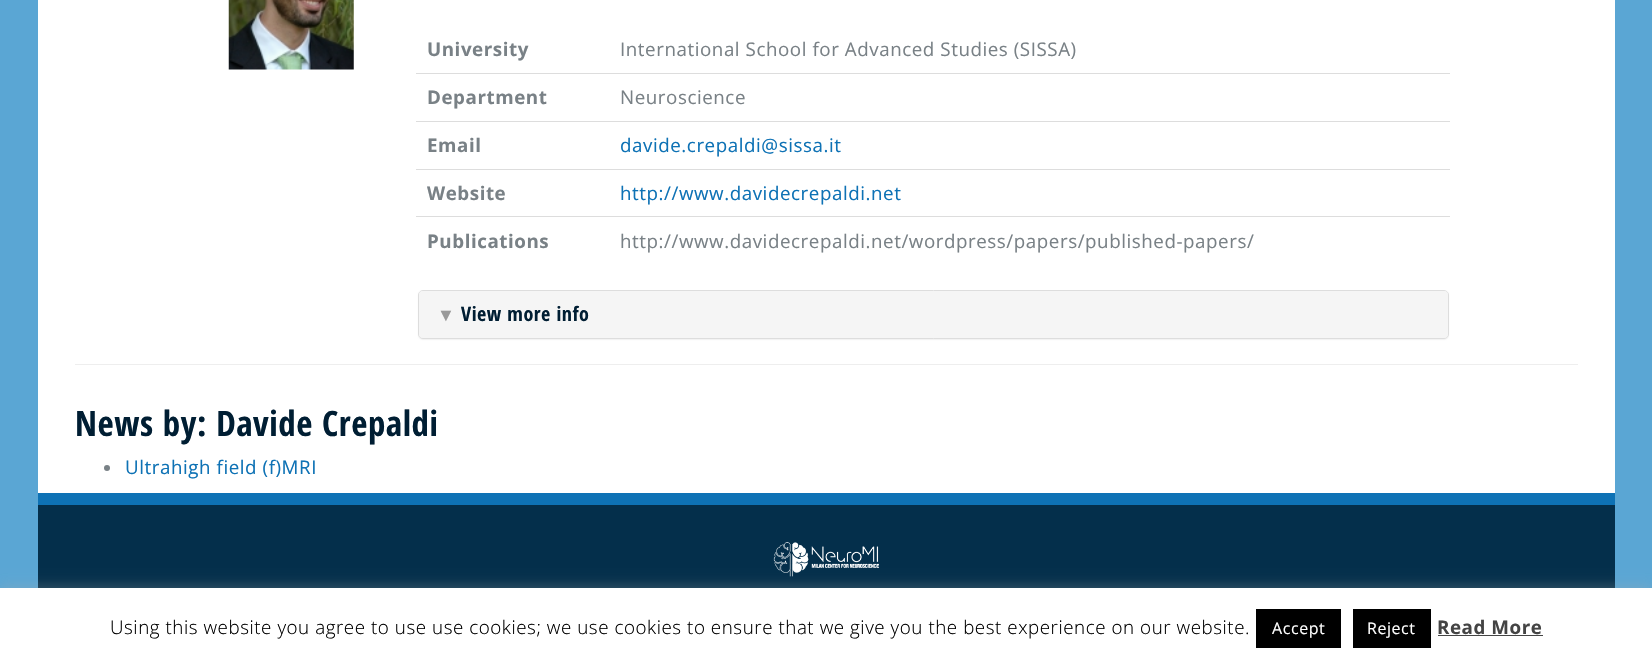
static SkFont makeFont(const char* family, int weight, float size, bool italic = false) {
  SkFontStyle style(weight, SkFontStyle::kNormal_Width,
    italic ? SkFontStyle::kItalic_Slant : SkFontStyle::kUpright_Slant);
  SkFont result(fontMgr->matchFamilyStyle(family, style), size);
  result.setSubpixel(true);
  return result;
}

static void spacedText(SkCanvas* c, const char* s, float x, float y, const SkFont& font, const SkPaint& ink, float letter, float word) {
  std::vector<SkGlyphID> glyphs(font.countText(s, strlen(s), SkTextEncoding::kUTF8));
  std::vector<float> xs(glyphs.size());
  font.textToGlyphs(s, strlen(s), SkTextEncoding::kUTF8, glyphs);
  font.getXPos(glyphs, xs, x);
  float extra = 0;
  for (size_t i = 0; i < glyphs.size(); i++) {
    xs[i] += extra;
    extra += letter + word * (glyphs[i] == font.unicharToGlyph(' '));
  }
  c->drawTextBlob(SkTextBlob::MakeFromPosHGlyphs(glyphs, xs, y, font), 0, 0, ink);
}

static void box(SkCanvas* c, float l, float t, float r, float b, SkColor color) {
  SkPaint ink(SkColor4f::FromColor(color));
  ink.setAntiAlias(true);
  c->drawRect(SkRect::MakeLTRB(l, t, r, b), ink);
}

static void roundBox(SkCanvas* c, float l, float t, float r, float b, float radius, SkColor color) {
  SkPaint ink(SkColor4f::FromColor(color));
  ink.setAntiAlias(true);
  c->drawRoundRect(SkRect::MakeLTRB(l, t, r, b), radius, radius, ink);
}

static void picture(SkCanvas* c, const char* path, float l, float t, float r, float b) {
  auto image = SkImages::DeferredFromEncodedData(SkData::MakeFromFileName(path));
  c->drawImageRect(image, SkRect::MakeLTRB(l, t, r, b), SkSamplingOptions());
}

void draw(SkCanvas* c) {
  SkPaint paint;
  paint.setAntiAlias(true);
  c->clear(0xff5aa6d4);
  box(c, 38, 0, 1615, 493, 0xffffffff);
  picture(c, "img_01.png", 228, 0, 354, 70);
  SkFont face1 = makeFont("Open Sans", 700, 18.75f);
  paint.setColor(0xff798186);
  spacedText(c, "University", 427, 56, face1, paint, 0.56f, 0);
  SkFont face2 = makeFont("Open Sans", 400, 18.75f);
  spacedText(c, "International School for Advanced Studies (SISSA)", 620, 56, face2, paint, 0.56f, 0);
  box(c, 416, 73, 1450, 74, 0xffdddddd);
  spacedText(c, "Department", 427, 104, face1, paint, 0.56f, 0);
  spacedText(c, "Neuroscience", 620, 104, face2, paint, 0.56f, 0);
  box(c, 416, 121, 1450, 122, 0xffdddddd);
  spacedText(c, "Email", 427, 152, face1, paint, 0.56f, 0);
  paint.setColor(0xff0e72b5);
  spacedText(c, "davide.crepaldi@sissa.it", 620, 152, face2, paint, 0.56f, 0);
  box(c, 416, 169, 1450, 170, 0xffdddddd);
  paint.setColor(0xff798186);
  spacedText(c, "Website", 427, 200, face1, paint, 0.56f, 0);
  paint.setColor(0xff0e72b5);
  spacedText(c, "http://www.davidecrepaldi.net", 620, 200, face2, paint, 0.56f, 0);
  box(c, 416, 216, 1450, 217, 0xffdddddd);
  paint.setColor(0xff798186);
  spacedText(c, "Publications", 427, 248, face1, paint, 0.56f, 0);
  spacedText(c, "http://www.davidecrepaldi.net/wordpress/papers/published-papers/", 620, 248, face2, paint, 0.56f, 0);
  paint.setColor(0x0d000000);
  paint.setMaskFilter(SkMaskFilter::MakeBlur(kNormal_SkBlurStyle, 0.5f));
  c->drawRoundRect(SkRect::MakeLTRB(418, 291, 1449, 340), 5, 5, paint);
  paint.setMaskFilter(nullptr);
  paint.setStyle(SkPaint::kStroke_Style);
  paint.setStrokeWidth(1);
  paint.setColor(0xffdddddd);
  c->drawRoundRect(SkRect::MakeLTRB(418.5f, 290.5f, 1448.5f, 338.5f), 4.5f, 4.5f, paint);
  roundBox(c, 419, 291, 1448, 338, 4, 0xfff5f5f5);
  SkFont face3 = makeFont("Liberation Sans", 400, 18);
  paint.setStyle(SkPaint::kFill_Style);
  paint.setColor(0xff999999);
  spacedText(c, "▼", 437, 321, face3, paint, 0.56f, 0);
  SkFont face4 = makeFont("Open Sans Condensed", 700, 20);
  paint.setColor(0xff001e33);
  spacedText(c, "View more info", 461, 321, face4, paint, 0.56f, 0);
  box(c, 75, 364, 1578, 365, 0xffeeeeee);
  SkFont face5 = makeFont("Open Sans Condensed", 700, 35);
  spacedText(c, "News by: Davide Crepaldi", 75, 436, face5, paint, 0.56f, 0);
  paint.setColor(0xff798186);
  c->drawCircle(107, 468, 3, paint);
  paint.setColor(0xff0e72b5);
  spacedText(c, "Ultrahigh field (f)MRI", 125, 474, face2, paint, 0.56f, 0);
  box(c, 38, 505, 1615, 588, 0xff042f4b);
  box(c, 38, 493, 1615, 505, 0xff0e72b5);
  picture(c, "img_02.png", 773, 542, 879, 577);
  paint.setColor(0x4dacabab);
  paint.setMaskFilter(SkMaskFilter::MakeBlur(kNormal_SkBlurStyle, 6));
  c->drawRect(SkRect::MakeLTRB(0, 586, 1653, 661), paint);
  paint.setMaskFilter(nullptr);
  box(c, 0, 588, 1652, 662, 0xffffffff);
  SkFont face6 = makeFont("Open Sans", 300, 18.75f);
  paint.setColor(0xff000000);
  spacedText(c, "Using this website you agree to use use cookies; we use cookies to ensure that we give you the best experience on our website.", 110, 634, face6, paint, 0.56f, 0);
  box(c, 1256, 609, 1341, 648, 0xff000000);
  SkFont face7 = makeFont("Open Sans", 400, 16);
  paint.setColor(0xffffffff);
  spacedText(c, "Accept", 1272, 634, face7, paint, 0.56f, 0);
  box(c, 1353, 609, 1431, 648, 0xff000000);
  spacedText(c, "Reject", 1367, 634, face7, paint, 0.56f, 0);
  paint.setColor(0xff444444);
  spacedText(c, "Read More", 1437, 634, face1, paint, 0.56f, 0);
  box(c, 1438, 635, 1543, 636, 0xff444444);
}
